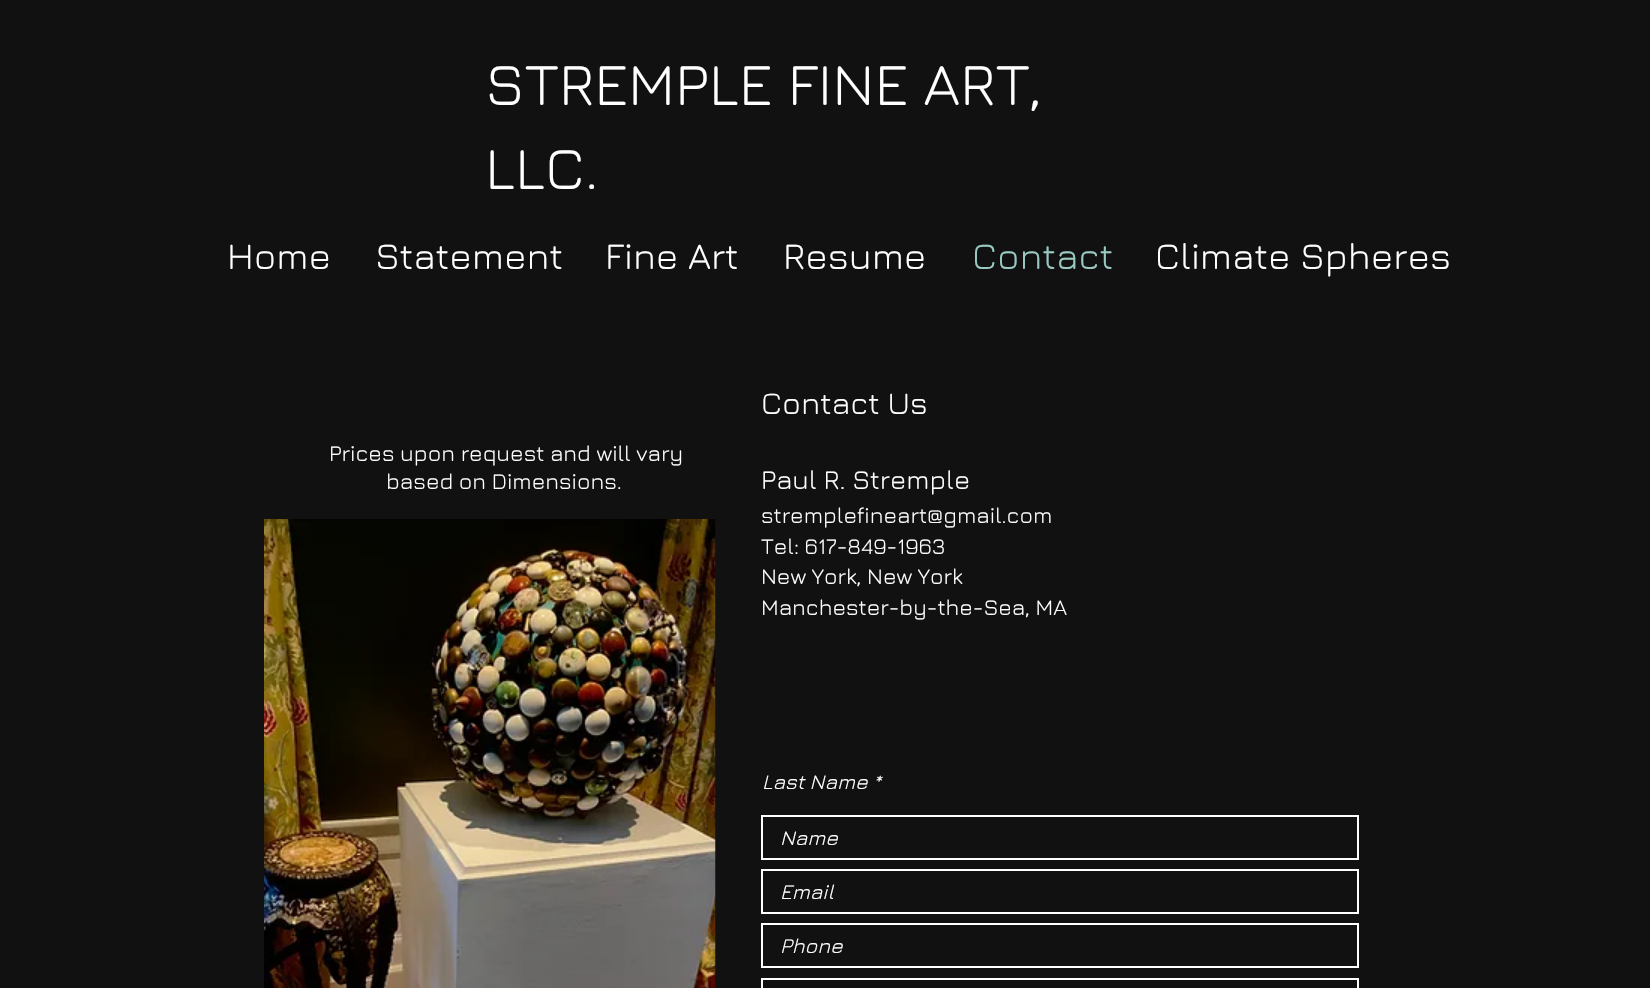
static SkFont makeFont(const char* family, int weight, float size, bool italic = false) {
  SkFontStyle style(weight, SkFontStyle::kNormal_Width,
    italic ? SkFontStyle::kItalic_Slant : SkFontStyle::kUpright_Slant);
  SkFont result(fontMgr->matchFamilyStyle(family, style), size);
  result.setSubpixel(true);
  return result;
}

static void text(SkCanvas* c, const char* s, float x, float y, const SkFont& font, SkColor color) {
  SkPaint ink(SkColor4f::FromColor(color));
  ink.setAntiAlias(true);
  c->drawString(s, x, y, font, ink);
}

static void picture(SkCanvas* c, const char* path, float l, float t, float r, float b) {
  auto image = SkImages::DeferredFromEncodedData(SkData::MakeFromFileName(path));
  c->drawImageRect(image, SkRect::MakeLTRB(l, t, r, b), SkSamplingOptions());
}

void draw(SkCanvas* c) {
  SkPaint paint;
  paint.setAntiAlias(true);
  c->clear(0xff111111);
  SkFont face1 = makeFont("Jura", 400, 60);
  text(c, "STREMPLE FINE ART,", 485, 105, face1, 0xffffffff);
  text(c, "LLC.", 485, 189, face1, 0xffffffff);
  SkFont face2 = makeFont("Jura", 400, 37.5f);
  text(c, "Home", 227, 269, face2, 0xffffffff);
  text(c, "Statement", 375, 269, face2, 0xffffffff);
  text(c, "Fine Art", 605, 269, face2, 0xffffffff);
  text(c, "Resume", 783, 269, face2, 0xffffffff);
  text(c, "Contact", 972, 269, face2, 0xff99c9c1);
  text(c, "Climate Spheres", 1155, 269, face2, 0xffffffff);
  SkFont face3 = makeFont("Jura", 400, 22.5f);
  text(c, "Prices upon request and will vary", 329, 461, face3, 0xffffffff);
  text(c, "based on Dimensions.", 386, 489, face3, 0xffffffff);
  SkFont face4 = makeFont("Jura", 400, 31.5f);
  text(c, "Contact Us", 761, 414, face4, 0xffffffff);
  SkFont face5 = makeFont("Jura", 400, 27);
  text(c, "Paul R. Stremple", 761, 489, face5, 0xffffffff);
  text(c, "stremplefineart@gmail.com", 761, 523, face3, 0xffffffff);
  text(c, "Tel: 617-849-1963", 761, 554, face3, 0xffffffff);
  text(c, "New York, New York", 761, 584, face3, 0xffffffff);
  text(c, "Manchester-by-the-Sea, MA", 761, 615, face3, 0xffffffff);
  picture(c, "img_01.png", 264, 519, 716, 988);
  SkFont face6 = makeFont("Jura", 400, 21, true);
  text(c, "Last Name *", 762, 789, face6, 0xffffffff);
  paint.setStyle(SkPaint::kStroke_Style);
  paint.setStrokeWidth(2);
  paint.setColor(0xffffffff);
  c->drawRect(SkRect::MakeLTRB(762, 816, 1358, 859), paint);
  text(c, "Name", 780, 845, face6, 0xffffffff);
  c->drawRect(SkRect::MakeLTRB(762, 870, 1358, 913), paint);
  text(c, "Email", 780, 899, face6, 0xffffffff);
  c->drawRect(SkRect::MakeLTRB(762, 924, 1358, 967), paint);
  text(c, "Phone", 780, 953, face6, 0xffffffff);
  c->drawRect(SkRect::MakeLTRB(762, 979, 1358, 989), paint);
}
